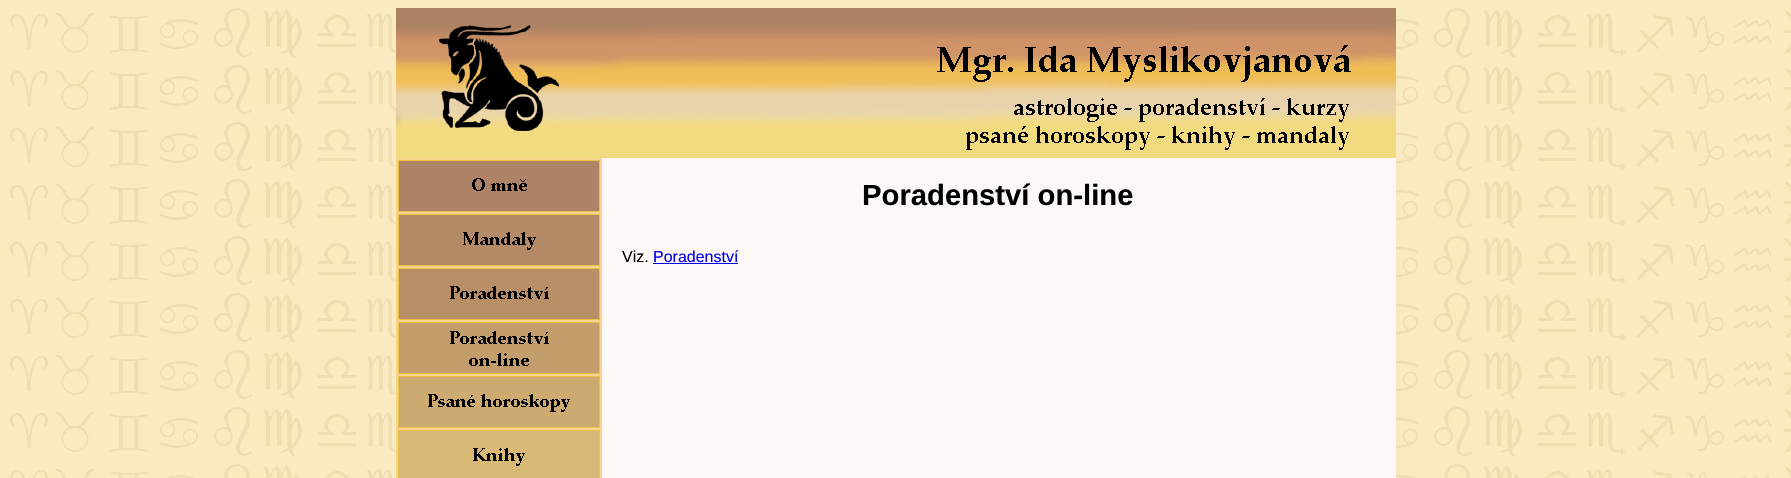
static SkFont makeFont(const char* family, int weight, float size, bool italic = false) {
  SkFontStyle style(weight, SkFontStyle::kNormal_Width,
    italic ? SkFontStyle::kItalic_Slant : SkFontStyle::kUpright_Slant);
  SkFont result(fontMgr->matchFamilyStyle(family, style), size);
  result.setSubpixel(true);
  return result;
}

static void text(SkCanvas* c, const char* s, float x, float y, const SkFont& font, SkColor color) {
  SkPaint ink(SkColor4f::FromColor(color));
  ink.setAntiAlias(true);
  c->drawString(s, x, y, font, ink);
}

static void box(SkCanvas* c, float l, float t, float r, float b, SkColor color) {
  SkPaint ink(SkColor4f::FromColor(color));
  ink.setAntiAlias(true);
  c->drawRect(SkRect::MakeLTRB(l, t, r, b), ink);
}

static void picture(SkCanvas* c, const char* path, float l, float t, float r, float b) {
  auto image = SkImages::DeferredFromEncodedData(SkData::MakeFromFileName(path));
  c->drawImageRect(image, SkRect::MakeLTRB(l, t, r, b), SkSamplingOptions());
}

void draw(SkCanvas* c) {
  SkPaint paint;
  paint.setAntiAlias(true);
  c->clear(0xfff9eac0);
  picture(c, "img_01.png", 10, 8, 1791, 478);
  picture(c, "img_02.png", 396, 8, 1396, 158);
  box(c, 396, 158, 602, 478, 0xfff5d490);
  box(c, 398, 160, 600, 212, 0xffecc141);
  picture(c, "img_03.png", 399, 161, 599, 211);
  box(c, 398, 214, 600, 266, 0xffecc141);
  picture(c, "img_04.png", 399, 215, 599, 265);
  box(c, 398, 268, 600, 320, 0xffecc141);
  picture(c, "img_05.png", 399, 269, 599, 319);
  box(c, 398, 322, 600, 374, 0xffecc141);
  picture(c, "img_06.png", 399, 323, 599, 373);
  box(c, 398, 376, 600, 428, 0xffecc141);
  picture(c, "img_07.png", 399, 377, 599, 427);
  box(c, 398, 430, 600, 478, 0xffecc141);
  picture(c, "img_08.png", 399, 431, 599, 478);
  box(c, 602, 158, 1396, 478, 0xfffdf8f5);
  SkFont face1 = makeFont("Liberation Sans", 700, 29.25f);
  text(c, "Poradenství on-line", 862, 205, face1, 0xff000000);
  SkFont face2 = makeFont("Liberation Sans", 400, 16);
  text(c, "Viz.", 622, 262, face2, 0xff000000);
  text(c, "Poradenství", 653, 262, face2, 0xff0000ee);
  box(c, 653, 263, 738, 264, 0xff0000ee);
}
